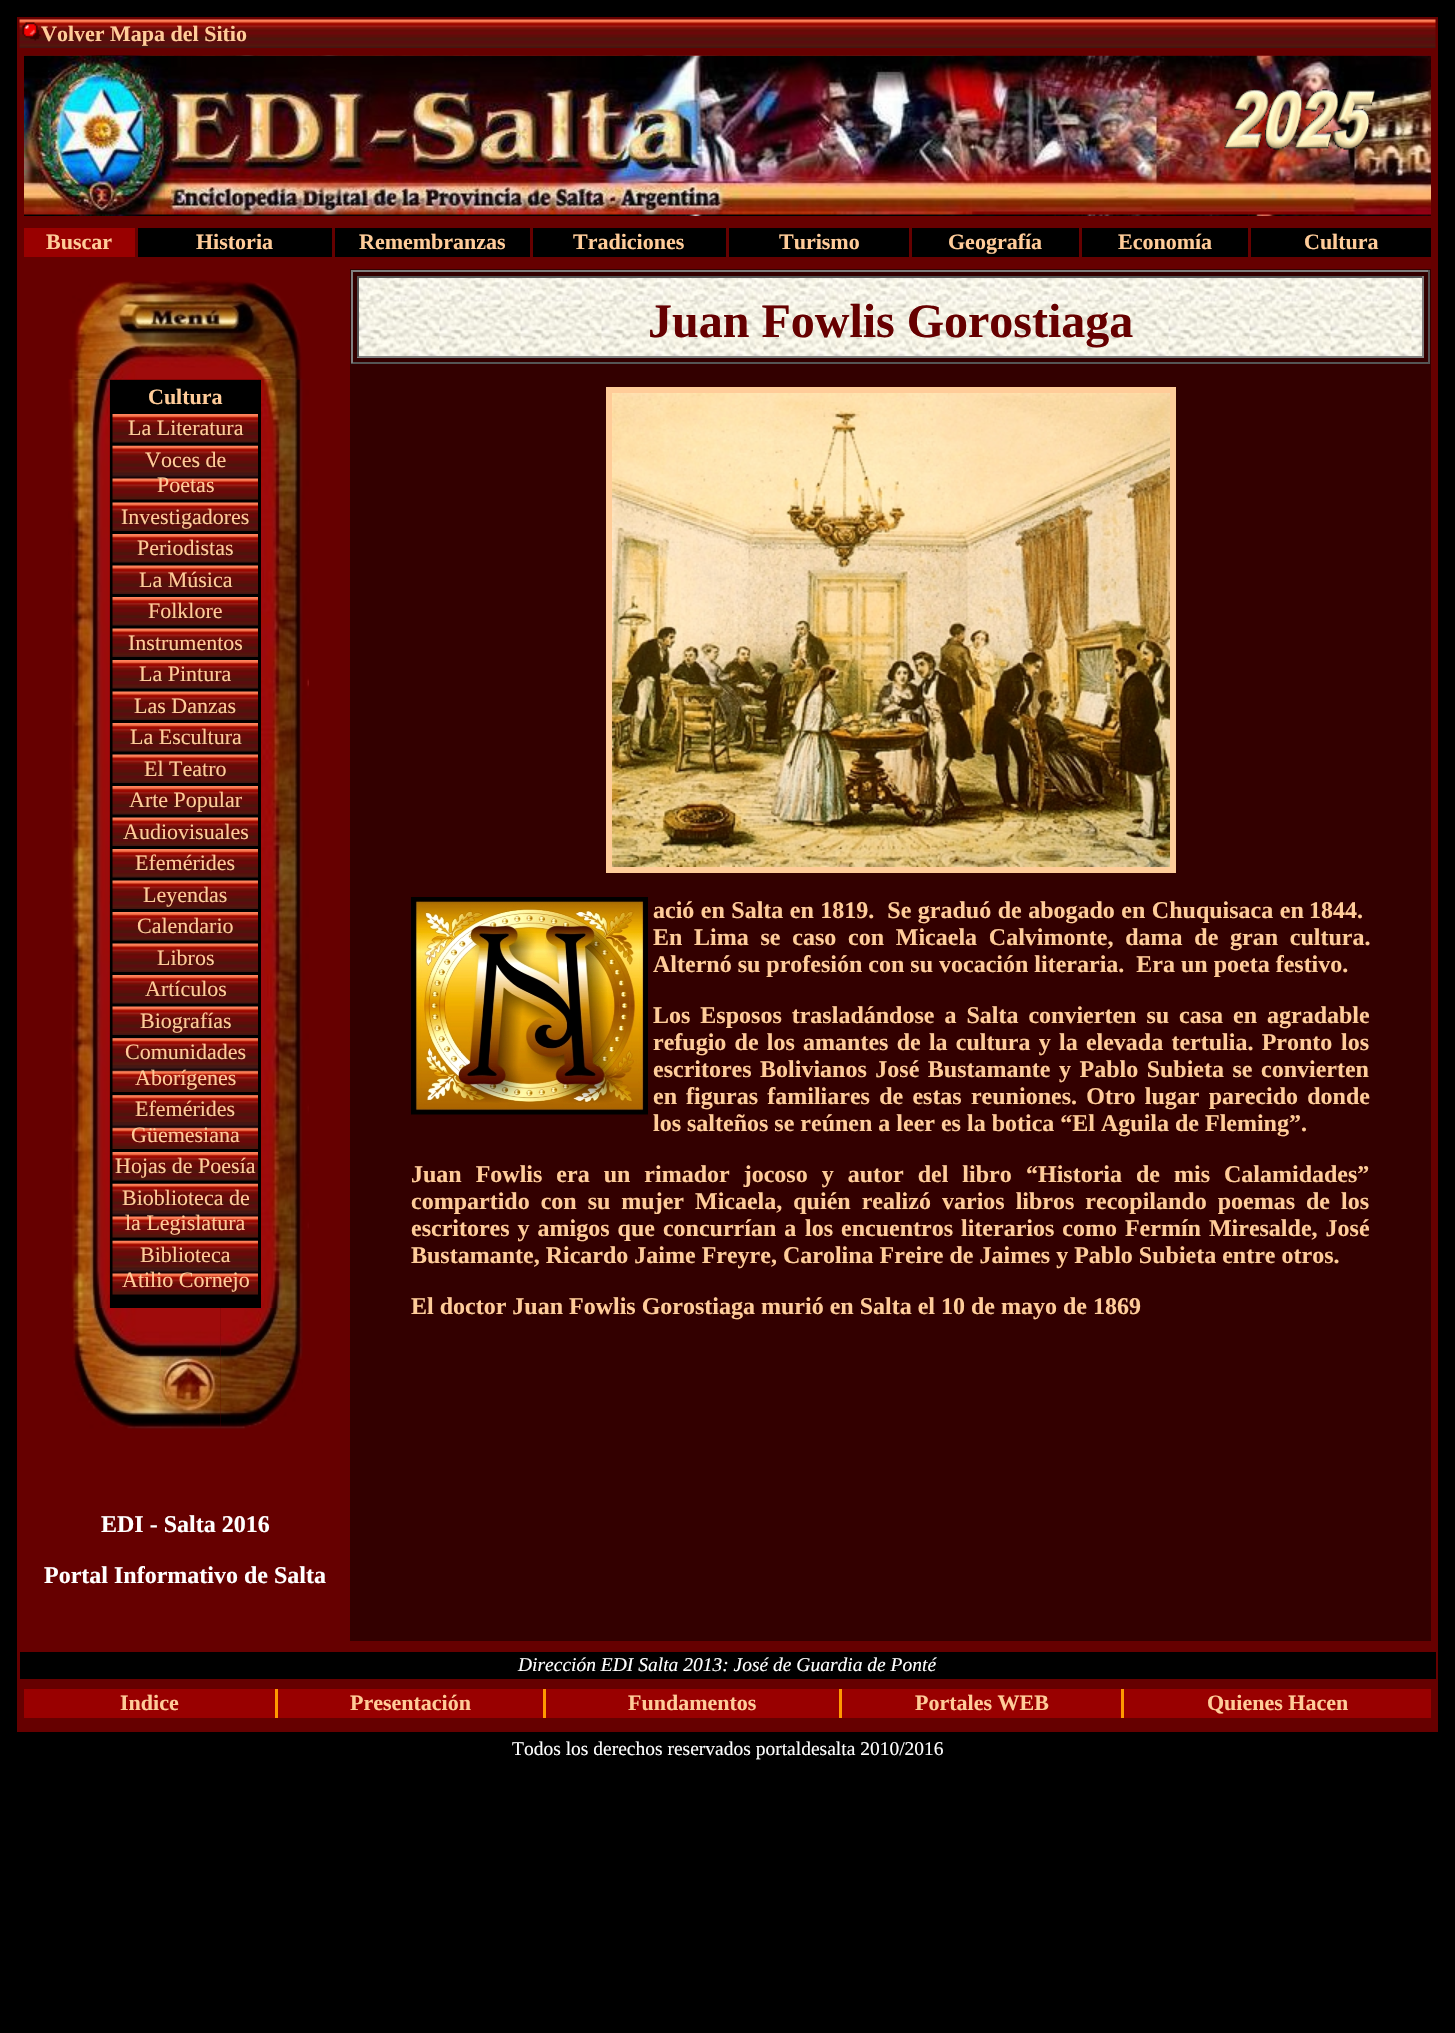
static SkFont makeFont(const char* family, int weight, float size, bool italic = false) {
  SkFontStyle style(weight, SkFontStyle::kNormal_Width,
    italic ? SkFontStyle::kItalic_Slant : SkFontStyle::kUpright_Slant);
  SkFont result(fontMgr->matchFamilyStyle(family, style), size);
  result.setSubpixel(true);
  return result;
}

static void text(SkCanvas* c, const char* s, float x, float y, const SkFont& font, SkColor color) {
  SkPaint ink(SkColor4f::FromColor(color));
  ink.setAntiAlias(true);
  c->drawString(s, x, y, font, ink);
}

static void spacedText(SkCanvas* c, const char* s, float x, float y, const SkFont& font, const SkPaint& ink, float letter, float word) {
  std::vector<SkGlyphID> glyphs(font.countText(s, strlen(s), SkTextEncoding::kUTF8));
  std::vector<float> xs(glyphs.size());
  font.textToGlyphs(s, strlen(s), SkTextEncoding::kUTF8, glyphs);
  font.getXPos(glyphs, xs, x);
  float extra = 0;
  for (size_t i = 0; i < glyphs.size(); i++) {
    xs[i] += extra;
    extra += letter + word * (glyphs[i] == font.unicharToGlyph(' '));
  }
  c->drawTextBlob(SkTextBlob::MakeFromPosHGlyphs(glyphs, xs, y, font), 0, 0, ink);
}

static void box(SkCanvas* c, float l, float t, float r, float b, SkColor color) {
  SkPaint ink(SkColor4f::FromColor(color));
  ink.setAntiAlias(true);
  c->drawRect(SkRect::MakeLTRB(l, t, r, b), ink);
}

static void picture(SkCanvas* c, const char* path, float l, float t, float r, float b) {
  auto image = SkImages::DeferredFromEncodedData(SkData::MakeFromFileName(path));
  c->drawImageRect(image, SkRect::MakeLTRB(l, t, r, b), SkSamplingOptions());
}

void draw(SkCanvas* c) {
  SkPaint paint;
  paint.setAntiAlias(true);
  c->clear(0xff000000);
  box(c, 17, 17, 1438, 1732, 0xff660000);
  picture(c, "img_01.png", 19, 19, 1436, 48);
  picture(c, "img_02.png", 22, 22, 41, 41);
  SkFont face1 = makeFont("Liberation Serif", 700, 22);
  text(c, "Volver Mapa del Sitio", 41, 41, face1, 0xffffcc99);
  picture(c, "img_03.png", 24, 55, 1431, 216);
  picture(c, "img_04.png", 1224, 89, 1375, 150);
  box(c, 24, 228, 135, 257, 0xff990000);
  text(c, "Buscar", 46, 249, face1, 0xffffcc99);
  box(c, 138, 228, 332, 257, 0xff000000);
  text(c, "Historia", 196, 249, face1, 0xffffcc99);
  box(c, 335, 228, 530, 257, 0xff000000);
  text(c, "Remembranzas", 359, 249, face1, 0xffffcc99);
  box(c, 533, 228, 726, 257, 0xff000000);
  text(c, "Tradiciones", 573, 249, face1, 0xffffcc99);
  box(c, 729, 228, 909, 257, 0xff000000);
  text(c, "Turismo", 779, 249, face1, 0xffffcc99);
  box(c, 912, 228, 1079, 257, 0xff000000);
  text(c, "Geografía", 948, 249, face1, 0xffffcc99);
  box(c, 1082, 228, 1248, 257, 0xff000000);
  text(c, "Economía", 1118, 249, face1, 0xffffcc99);
  box(c, 1251, 228, 1431, 257, 0xff000000);
  text(c, "Cultura", 1304, 249, face1, 0xffffcc99);
  picture(c, "img_06.png", 68, 379, 110, 1308);
  picture(c, "img_15.png", 261, 379, 309, 380);
  picture(c, "img_05.png", 72, 280, 302, 380);
  picture(c, "img_07.png", 68, 379, 110, 1308);
  box(c, 110, 380, 261, 1308, 0xff000000);
  text(c, "Cultura", 148, 404, face1, 0xffffcc99);
  picture(c, "img_08.png", 112, 414, 258, 443);
  SkFont face2 = makeFont("Liberation Serif", 400, 22);
  text(c, "La Literatura", 128, 435, face2, 0xffffcc99);
  picture(c, "img_09.png", 112, 445, 258, 500);
  text(c, "Voces de", 145, 467, face2, 0xffffcc99);
  text(c, "Poetas", 157, 492, face2, 0xffffcc99);
  picture(c, "img_10.png", 112, 502, 258, 531);
  text(c, "Investigadores", 121, 524, face2, 0xffffcc99);
  picture(c, "img_08.png", 112, 534, 258, 563);
  text(c, "Periodistas", 137, 555, face2, 0xffffcc99);
  picture(c, "img_10.png", 112, 565, 258, 594);
  text(c, "La Música", 139, 587, face2, 0xffffcc99);
  picture(c, "img_08.png", 112, 597, 258, 626);
  text(c, "Folklore", 148, 618, face2, 0xffffcc99);
  picture(c, "img_10.png", 112, 628, 258, 657);
  text(c, "Instrumentos", 128, 650, face2, 0xffffcc99);
  picture(c, "img_08.png", 112, 660, 258, 689);
  text(c, "La Pintura", 139, 681, face2, 0xffffcc99);
  picture(c, "img_10.png", 112, 691, 258, 720);
  text(c, "Las Danzas", 134, 713, face2, 0xffffcc99);
  picture(c, "img_08.png", 112, 723, 258, 752);
  text(c, "La Escultura", 130, 744, face2, 0xffffcc99);
  picture(c, "img_10.png", 112, 754, 258, 783);
  text(c, "El Teatro", 144, 776, face2, 0xffffcc99);
  picture(c, "img_08.png", 112, 786, 258, 815);
  text(c, "Arte Popular", 129, 807, face2, 0xffffcc99);
  picture(c, "img_10.png", 112, 817, 258, 846);
  text(c, "Audiovisuales", 123, 839, face2, 0xffffcc99);
  picture(c, "img_08.png", 112, 849, 258, 878);
  text(c, "Efemérides", 135, 870, face2, 0xffffcc99);
  picture(c, "img_10.png", 112, 880, 258, 909);
  text(c, "Leyendas", 143, 902, face2, 0xffffcc99);
  picture(c, "img_08.png", 112, 912, 258, 941);
  text(c, "Calendario", 137, 933, face2, 0xffffcc99);
  picture(c, "img_10.png", 112, 943, 258, 972);
  text(c, "Libros", 157, 965, face2, 0xffffcc99);
  picture(c, "img_08.png", 112, 975, 258, 1004);
  text(c, "Artículos", 145, 996, face2, 0xffffcc99);
  picture(c, "img_10.png", 112, 1006, 258, 1035);
  text(c, "Biografías", 140, 1028, face2, 0xffffcc99);
  picture(c, "img_11.png", 112, 1038, 258, 1092);
  text(c, "Comunidades", 125, 1059, face2, 0xffffcc99);
  text(c, "Aborígenes", 135, 1085, face2, 0xffffcc99);
  picture(c, "img_12.png", 112, 1095, 258, 1149);
  text(c, "Efemérides", 135, 1116, face2, 0xffffcc99);
  text(c, "Güemesiana", 131, 1142, face2, 0xffffcc99);
  picture(c, "img_08.png", 112, 1152, 258, 1181);
  text(c, "Hojas de Poesía", 115, 1173, face2, 0xffffcc99);
  picture(c, "img_13.png", 112, 1183, 258, 1238);
  text(c, "Bioblioteca de", 122, 1205, face2, 0xffffcc99);
  text(c, "la Legislatura", 125, 1230, face2, 0xffffcc99);
  picture(c, "img_14.png", 112, 1240, 258, 1295);
  text(c, "Biblioteca", 140, 1262, face2, 0xffffcc99);
  text(c, "Atilio Cornejo", 122, 1287, face2, 0xffffcc99);
  picture(c, "img_16.png", 261, 379, 309, 1308);
  picture(c, "img_17.png", 72, 1308, 159, 1429);
  picture(c, "img_18.png", 159, 1308, 221, 1429);
  picture(c, "img_19.png", 220, 1308, 303, 1429);
  SkFont face3 = makeFont("Liberation Serif", 700, 24);
  text(c, "EDI - Salta 2016", 101, 1532, face3, 0xffffffff);
  text(c, "Portal Informativo de Salta", 44, 1583, face3, 0xffffffff);
  box(c, 350, 269, 1431, 1641, 0xff330000);
  box(c, 351, 270, 1430, 272, 0xff808080);
  box(c, 1428, 270, 1430, 363, 0xff555555);
  box(c, 351, 362, 1430, 364, 0xff555555);
  box(c, 351, 270, 353, 363, 0xff808080);
  picture(c, "img_20.png", 359, 278, 1422, 356);
  box(c, 357, 276, 1424, 278, 0xff555555);
  box(c, 1422, 276, 1424, 357, 0xff808080);
  box(c, 357, 356, 1424, 358, 0xff808080);
  box(c, 357, 276, 359, 357, 0xff555555);
  SkFont face4 = makeFont("Liberation Serif", 700, 48);
  text(c, "Juan Fowlis Gorostiaga", 648, 337, face4, 0xff660000);
  paint.setStyle(SkPaint::kStroke_Style);
  paint.setStrokeWidth(6);
  paint.setColor(0xffffcc99);
  c->drawRect(SkRect::MakeLTRB(609, 390, 1173, 870), paint);
  picture(c, "img_21.png", 612, 393, 1170, 867);
  picture(c, "img_22.png", 411, 897, 648, 1115);
  paint.setStyle(SkPaint::kFill_Style);
  spacedText(c, "ació en Salta en 1819.  Se graduó de abogado en Chuquisaca en", 653, 918, face3, paint, 0, 0.5f);
  text(c, "1844.", 1309, 918, face3, 0xffffcc99);
  spacedText(c, "En Lima se caso con Micaela Calvimonte, dama de gran cultura.", 653, 945, face3, paint, 0, 5.75f);
  text(c, "Alternó su profesión con su vocación literaria.  Era un poeta festivo.", 653, 972, face3, 0xffffcc99);
  spacedText(c, "Los Esposos trasladándose a Salta convierten su casa en", 653, 1023, face3, paint, 0, 4);
  text(c, "agradable", 1267, 1023, face3, 0xffffcc99);
  spacedText(c, "refugio de los amantes de la cultura y la elevada tertulia. Pronto", 653, 1050, face3, paint, 0, 2.25f);
  text(c, "los", 1341, 1050, face3, 0xffffcc99);
  spacedText(c, "escritores Bolivianos José Bustamante y Pablo Subieta se convierten", 653, 1077, face3, paint, 0, 2.5f);
  text(c, "en", 653, 1104, face3, 0xffffcc99);
  spacedText(c, "figuras familiares de estas reuniones. Otro lugar parecido donde", 686, 1104, face3, paint, 0, 3.25f);
  text(c, "los salteños se reúnen a leer es la botica “El Aguila de Fleming”.", 653, 1131, face3, 0xffffcc99);
  spacedText(c, "Juan Fowlis era un rimador jocoso y autor del libro", 411, 1182, face3, paint, 0, 8);
  spacedText(c, "“Historia de mis Calamidades”", 1026, 1182, face3, paint, 0, 8);
  spacedText(c, "compartido con su mujer Micaela, quién realizó", 411, 1209, face3, paint, 0, 5);
  spacedText(c, "varios libros recopilando poemas de los", 942, 1209, face3, paint, 0, 5);
  spacedText(c, "escritores y amigos que concurrían a", 411, 1236, face3, paint, 0, 2);
  spacedText(c, "los encuentros literarios como Fermín Miresalde, José", 805, 1236, face3, paint, 0, 2);
  text(c, "Bustamante, Ricardo Jaime Freyre, Carolina Freire de Jaimes y Pablo Subieta entre otros.", 411, 1263, face3, 0xffffcc99);
  text(c, "El doctor Juan Fowlis Gorostiaga murió en Salta el 10 de mayo de 1869", 411, 1314, face3, 0xffffcc99);
  box(c, 20, 1652, 1436, 1679, 0xff000000);
  SkFont face5 = makeFont("Liberation Serif", 400, 19.5f, true);
  text(c, "Dirección EDI Salta 2013: José de Guardia de Ponté", 518, 1671, face5, 0xffffffff);
  box(c, 275, 1689, 1124, 1718, 0xffff9900);
  box(c, 24, 1689, 275, 1718, 0xff990000);
  text(c, "Indice", 120, 1710, face1, 0xffffcc99);
  box(c, 278, 1689, 543, 1718, 0xff990000);
  text(c, "Presentación", 350, 1710, face1, 0xffffcc99);
  box(c, 546, 1689, 839, 1718, 0xff990000);
  text(c, "Fundamentos", 628, 1710, face1, 0xffffcc99);
  box(c, 842, 1689, 1121, 1718, 0xff990000);
  text(c, "Portales WEB", 915, 1710, face1, 0xffffcc99);
  box(c, 1124, 1689, 1431, 1718, 0xff990000);
  text(c, "Quienes Hacen", 1207, 1710, face1, 0xffffcc99);
  SkFont face6 = makeFont("Liberation Serif", 400, 19.5f);
  text(c, "Todos los derechos reservados portaldesalta 2010/2016", 512, 1755, face6, 0xffffffff);
}
